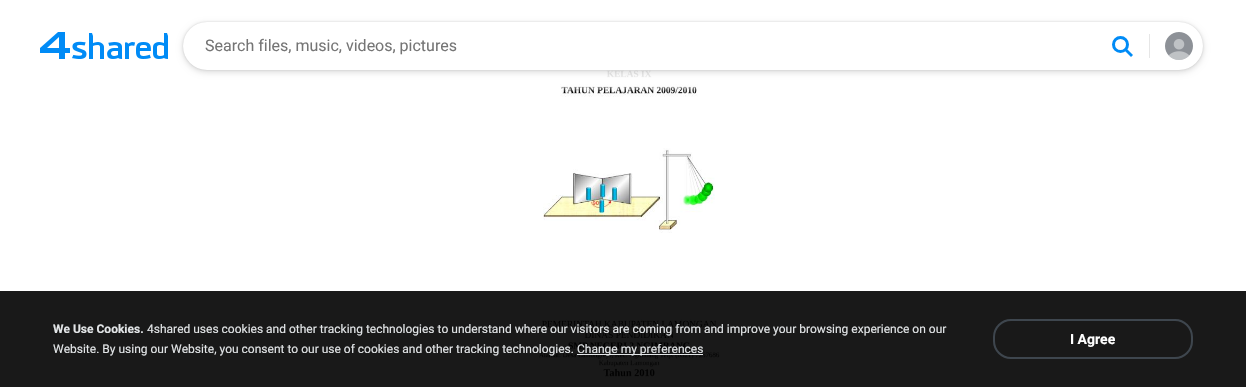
static SkFont makeFont(const char* family, int weight, float size, bool italic = false) {
  SkFontStyle style(weight, SkFontStyle::kNormal_Width,
    italic ? SkFontStyle::kItalic_Slant : SkFontStyle::kUpright_Slant);
  SkFont result(fontMgr->matchFamilyStyle(family, style), size);
  result.setSubpixel(true);
  return result;
}

static void text(SkCanvas* c, const char* s, float x, float y, const SkFont& font, SkColor color) {
  SkPaint ink(SkColor4f::FromColor(color));
  ink.setAntiAlias(true);
  c->drawString(s, x, y, font, ink);
}

static void box(SkCanvas* c, float l, float t, float r, float b, SkColor color) {
  SkPaint ink(SkColor4f::FromColor(color));
  ink.setAntiAlias(true);
  c->drawRect(SkRect::MakeLTRB(l, t, r, b), ink);
}

static void roundBox(SkCanvas* c, float l, float t, float r, float b, float radius, SkColor color) {
  SkPaint ink(SkColor4f::FromColor(color));
  ink.setAntiAlias(true);
  c->drawRoundRect(SkRect::MakeLTRB(l, t, r, b), radius, radius, ink);
}

static void picture(SkCanvas* c, const char* path, float l, float t, float r, float b) {
  auto image = SkImages::DeferredFromEncodedData(SkData::MakeFromFileName(path));
  c->drawImageRect(image, SkRect::MakeLTRB(l, t, r, b), SkSamplingOptions());
}

void draw(SkCanvas* c) {
  SkPaint paint;
  paint.setAntiAlias(true);
  c->clear(0xffffffff);
  picture(c, "img_03.png", 538, 70, 723, 378);
  {
    const SkColor colors[] = {0xe6ffffff, 0xe6ffffff, 0x00ffffff};
    const float stops[] = {0, 0.9f, 1};
    const SkPoint ends[] = {{623, 0}, {623, 92}};
    paint.setShader(SkGradientShader::MakeLinear(ends, colors, stops, 3, SkTileMode::kClamp));
    paint.setAlpha(255);
  }
  c->drawRect(SkRect::MakeLTRB(561, 70, 697, 92), paint);
  paint.setShader(nullptr);
  paint.setColor(0x26000000);
  paint.setMaskFilter(SkMaskFilter::MakeBlur(kNormal_SkBlurStyle, 1));
  c->drawRoundRect(SkRect::MakeLTRB(183, 22, 1203, 70), 24, 24, paint);
  paint.setMaskFilter(nullptr);
  paint.setMaskFilter(SkMaskFilter::MakeBlur(kNormal_SkBlurStyle, 3));
  c->drawRoundRect(SkRect::MakeLTRB(183, 24, 1203, 72), 24, 24, paint);
  paint.setMaskFilter(nullptr);
  roundBox(c, 183, 22, 1203, 70, 24, 0xffffffff);
  picture(c, "img_01.png", 40, 32, 168, 59);
  SkFont face1 = makeFont("Roboto", 400, 16);
  text(c, "Search files, music, videos, pictures", 205, 51, face1, 0xff757575);
  paint.setStyle(SkPaint::kStroke_Style);
  paint.setStrokeWidth(3);
  paint.setColor(0xff008bf6);
  c->drawCircle(1120.5f, 44.5f, 7, paint);
  paint.setStyle(SkPaint::kFill_Style);
  c->drawPath(SkPathBuilder(SkPathFillType::kEvenOdd).moveTo(1131, 57).lineTo(1125, 51).lineTo(1127, 49).lineTo(1133, 55).close().detach(), paint);
  box(c, 1149, 34, 1150, 58, 0xffe6e6e6);
  picture(c, "img_02.png", 1165, 32, 1193, 60);
  box(c, 0, 291, 1246, 387, 0xe6000000);
  SkFont face2 = makeFont("Roboto", 700, 12);
  text(c, "We Use Cookies.", 53, 333, face2, 0xffe2e5e7);
  SkFont face3 = makeFont("Roboto", 400, 12);
  text(c, "4shared uses cookies and other tracking technologies to understand where our visitors are coming from and improve your browsing experience on our", 147, 333, face3, 0xffe2e5e7);
  paint.setStyle(SkPaint::kStroke_Style);
  paint.setStrokeWidth(2);
  paint.setColor(0xff3e464e);
  c->drawRoundRect(SkRect::MakeLTRB(994, 320, 1192, 358), 17, 17, paint);
  SkFont face4 = makeFont("Roboto", 700, 14);
  text(c, "I Agree", 1070, 344, face4, 0xffffffff);
  text(c, "Website. By using our Website, you consent to our use of cookies and other tracking technologies.", 53, 353, face3, 0xffe2e5e7);
  box(c, 577, 354, 703, 355, 0xffe2e5e7);
  text(c, "Change my preferences", 577, 353, face3, 0xffe2e5e7);
}
